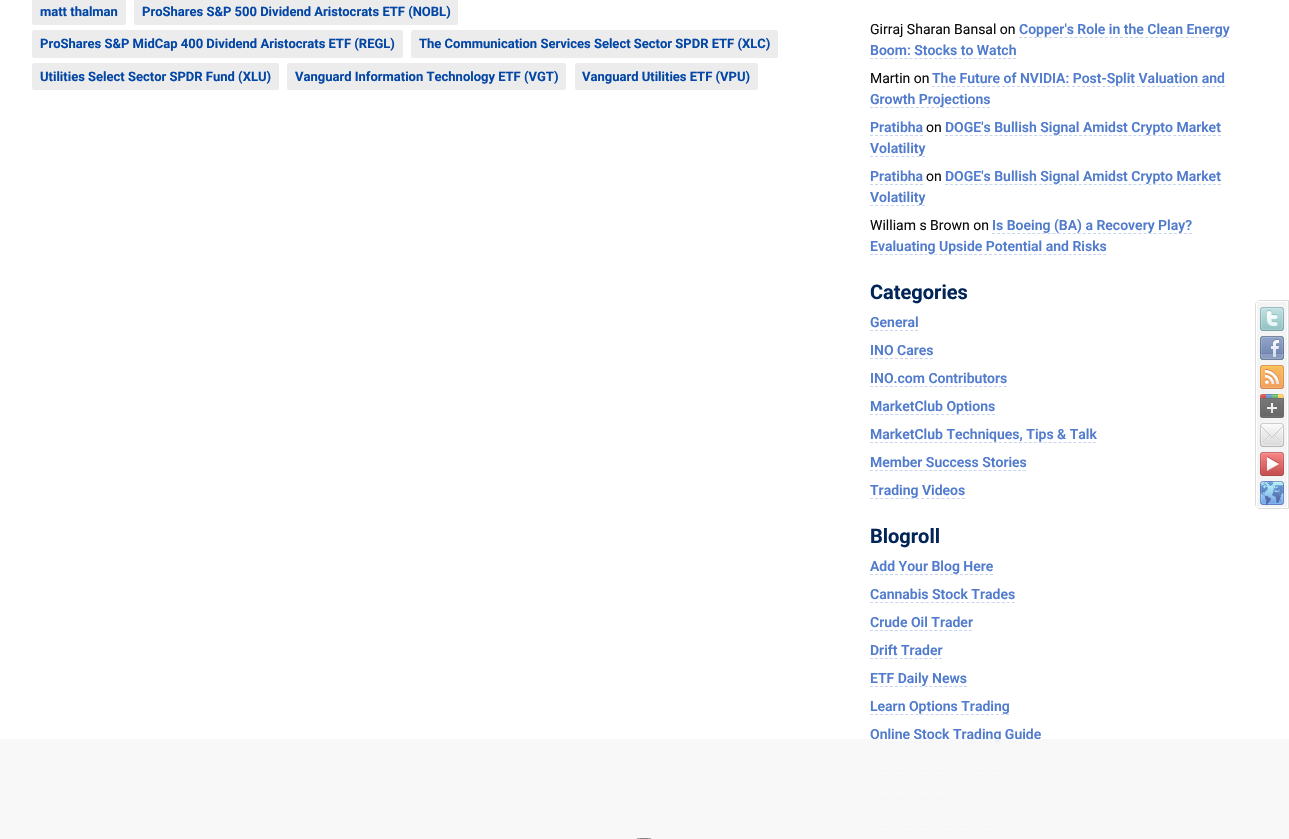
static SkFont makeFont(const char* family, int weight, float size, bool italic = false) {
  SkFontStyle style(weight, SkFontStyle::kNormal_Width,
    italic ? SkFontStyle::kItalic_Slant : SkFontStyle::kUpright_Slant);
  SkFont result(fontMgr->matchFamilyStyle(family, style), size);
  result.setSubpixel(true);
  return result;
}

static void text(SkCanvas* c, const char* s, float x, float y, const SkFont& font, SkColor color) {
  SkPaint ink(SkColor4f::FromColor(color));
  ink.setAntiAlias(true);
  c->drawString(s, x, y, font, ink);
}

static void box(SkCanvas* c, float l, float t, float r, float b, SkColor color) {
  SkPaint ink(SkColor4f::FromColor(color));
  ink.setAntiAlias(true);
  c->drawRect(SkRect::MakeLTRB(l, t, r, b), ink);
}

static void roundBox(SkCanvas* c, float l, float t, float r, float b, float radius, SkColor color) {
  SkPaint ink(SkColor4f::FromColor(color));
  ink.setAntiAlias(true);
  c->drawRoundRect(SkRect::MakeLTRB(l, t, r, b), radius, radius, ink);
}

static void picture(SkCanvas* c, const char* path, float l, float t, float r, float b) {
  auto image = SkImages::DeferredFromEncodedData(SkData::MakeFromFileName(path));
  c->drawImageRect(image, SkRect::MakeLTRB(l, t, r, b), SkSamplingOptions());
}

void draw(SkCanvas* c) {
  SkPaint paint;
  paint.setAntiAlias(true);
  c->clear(0xffffffff);
  roundBox(c, 32, -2, 126, 25, 2.5f, 0xffedecec);
  SkFont face1 = makeFont("Roboto", 700, 13);
  text(c, "matt thalman", 40, 16, face1, 0xff0246a6);
  roundBox(c, 134, -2, 458, 25, 2.5f, 0xffedecec);
  text(c, "ProShares S&P 500 Dividend Aristocrats ETF (NOBL)", 142, 16, face1, 0xff0246a6);
  roundBox(c, 32, 30, 403, 58, 2.5f, 0xffedecec);
  text(c, "ProShares S&P MidCap 400 Dividend Aristocrats ETF (REGL)", 40, 48, face1, 0xff0246a6);
  roundBox(c, 411, 30, 778, 58, 2.5f, 0xffedecec);
  text(c, "The Communication Services Select Sector SPDR ETF (XLC)", 419, 48, face1, 0xff0246a6);
  roundBox(c, 32, 63, 279, 90, 2.5f, 0xffedecec);
  text(c, "Utilities Select Sector SPDR Fund (XLU)", 40, 81, face1, 0xff0246a6);
  roundBox(c, 287, 63, 566, 90, 2.5f, 0xffedecec);
  text(c, "Vanguard Information Technology ETF (VGT)", 295, 81, face1, 0xff0246a6);
  roundBox(c, 575, 63, 758, 90, 2.5f, 0xffedecec);
  text(c, "Vanguard Utilities ETF (VPU)", 582, 81, face1, 0xff0246a6);
  SkFont face2 = makeFont("Roboto", 400, 14);
  text(c, "Girraj Sharan Bansal on", 870, 34, face2, 0xff0a0c0d);
  SkFont face3 = makeFont("Roboto", 600, 14);
  text(c, "Copper's Role in the Clean Energy", 1019, 34, face3, 0xff517bcd);
  paint.setStyle(SkPaint::kStroke_Style);
  paint.setStrokeWidth(1);
  paint.setColor(0xffc8d5ef);
  paint.setPathEffect(SkDashPathEffect::Make({{3, 2.05f}}, 0));
  c->drawPath(SkPathBuilder().moveTo(1019, 37.5f).lineTo(1229, 37.5f).detach(), paint);
  paint.setPathEffect(nullptr);
  text(c, "Boom: Stocks to Watch", 870, 55, face3, 0xff517bcd);
  paint.setPathEffect(SkDashPathEffect::Make({{3, 1.93f}}, 0));
  c->drawPath(SkPathBuilder().moveTo(870, 58.5f).lineTo(1016, 58.5f).detach(), paint);
  paint.setPathEffect(nullptr);
  text(c, "Martin on", 870, 83, face2, 0xff0a0c0d);
  text(c, "The Future of NVIDIA: Post-Split Valuation and", 932, 83, face3, 0xff517bcd);
  paint.setPathEffect(SkDashPathEffect::Make({{3, 2}}, 0));
  c->drawPath(SkPathBuilder().moveTo(932, 86.5f).lineTo(1225, 86.5f).detach(), paint);
  paint.setPathEffect(nullptr);
  text(c, "Growth Projections", 870, 104, face3, 0xff517bcd);
  paint.setPathEffect(SkDashPathEffect::Make({{3, 2.09f}}, 0));
  c->drawPath(SkPathBuilder().moveTo(870, 107.5f).lineTo(990, 107.5f).detach(), paint);
  paint.setPathEffect(nullptr);
  text(c, "Pratibha", 870, 132, face3, 0xff517bcd);
  paint.setPathEffect(SkDashPathEffect::Make({{3, 2}}, 0));
  c->drawPath(SkPathBuilder().moveTo(870, 135.5f).lineTo(923, 135.5f).detach(), paint);
  paint.setPathEffect(nullptr);
  text(c, "on", 926, 132, face2, 0xff0a0c0d);
  text(c, "DOGE's Bullish Signal Amidst Crypto Market", 945, 132, face3, 0xff517bcd);
  paint.setPathEffect(SkDashPathEffect::Make({{3, 1.96f}}, 0));
  c->drawPath(SkPathBuilder().moveTo(945, 135.5f).lineTo(1221, 135.5f).detach(), paint);
  paint.setPathEffect(nullptr);
  text(c, "Volatility", 870, 153, face3, 0xff517bcd);
  paint.setPathEffect(SkDashPathEffect::Make({{3, 2.2f}}, 0));
  c->drawPath(SkPathBuilder().moveTo(870, 156.5f).lineTo(925, 156.5f).detach(), paint);
  paint.setPathEffect(nullptr);
  text(c, "Pratibha", 870, 181, face3, 0xff517bcd);
  paint.setPathEffect(SkDashPathEffect::Make({{3, 2}}, 0));
  c->drawPath(SkPathBuilder().moveTo(870, 184.5f).lineTo(923, 184.5f).detach(), paint);
  paint.setPathEffect(nullptr);
  text(c, "on", 926, 181, face2, 0xff0a0c0d);
  text(c, "DOGE's Bullish Signal Amidst Crypto Market", 945, 181, face3, 0xff517bcd);
  paint.setPathEffect(SkDashPathEffect::Make({{3, 1.96f}}, 0));
  c->drawPath(SkPathBuilder().moveTo(945, 184.5f).lineTo(1221, 184.5f).detach(), paint);
  paint.setPathEffect(nullptr);
  text(c, "Volatility", 870, 202, face3, 0xff517bcd);
  paint.setPathEffect(SkDashPathEffect::Make({{3, 2.2f}}, 0));
  c->drawPath(SkPathBuilder().moveTo(870, 205.5f).lineTo(925, 205.5f).detach(), paint);
  paint.setPathEffect(nullptr);
  text(c, "William s Brown on", 870, 230, face2, 0xff0a0c0d);
  paint.setPathEffect(SkDashPathEffect::Make({{3, 2.05f}}, 0));
  c->drawPath(SkPathBuilder().moveTo(992, 233.5f).lineTo(1192, 233.5f).detach(), paint);
  paint.setPathEffect(nullptr);
  text(c, "Is Boeing (BA) a Recovery Play?", 992, 230, face3, 0xff517bcd);
  text(c, "Evaluating Upside Potential and Risks", 870, 251, face3, 0xff517bcd);
  paint.setPathEffect(SkDashPathEffect::Make({{3, 1.96f}}, 0));
  c->drawPath(SkPathBuilder().moveTo(870, 254.5f).lineTo(1106, 254.5f).detach(), paint);
  paint.setPathEffect(nullptr);
  SkFont face4 = makeFont("Roboto", 700, 20);
  text(c, "Categories", 870, 299, face4, 0xff012558);
  text(c, "General", 870, 327, face3, 0xff517bcd);
  paint.setPathEffect(SkDashPathEffect::Make({{3, 2}}, 0));
  c->drawPath(SkPathBuilder().moveTo(870, 330.5f).lineTo(918, 330.5f).detach(), paint);
  paint.setPathEffect(nullptr);
  text(c, "INO Cares", 870, 355, face3, 0xff517bcd);
  paint.setPathEffect(SkDashPathEffect::Make({{3, 2}}, 0));
  c->drawPath(SkPathBuilder().moveTo(870, 358.5f).lineTo(933, 358.5f).detach(), paint);
  paint.setPathEffect(nullptr);
  text(c, "INO.com Contributors", 870, 383, face3, 0xff517bcd);
  paint.setPathEffect(SkDashPathEffect::Make({{3, 1.96f}}, 0));
  c->drawPath(SkPathBuilder().moveTo(870, 386.5f).lineTo(1007, 386.5f).detach(), paint);
  paint.setPathEffect(nullptr);
  text(c, "MarketClub Options", 870, 411, face3, 0xff517bcd);
  paint.setPathEffect(SkDashPathEffect::Make({{3, 2.08f}}, 0));
  c->drawPath(SkPathBuilder().moveTo(870, 414.5f).lineTo(995, 414.5f).detach(), paint);
  paint.setPathEffect(nullptr);
  text(c, "MarketClub Techniques, Tips & Talk", 870, 439, face3, 0xff517bcd);
  paint.setPathEffect(SkDashPathEffect::Make({{3, 1.96f}}, 0));
  c->drawPath(SkPathBuilder().moveTo(870, 442.5f).lineTo(1096, 442.5f).detach(), paint);
  paint.setPathEffect(nullptr);
  text(c, "Member Success Stories", 870, 467, face3, 0xff517bcd);
  paint.setPathEffect(SkDashPathEffect::Make({{3, 1.94f}}, 0));
  c->drawPath(SkPathBuilder().moveTo(870, 470.5f).lineTo(1026, 470.5f).detach(), paint);
  paint.setPathEffect(nullptr);
  text(c, "Trading Videos", 870, 495, face3, 0xff517bcd);
  paint.setPathEffect(SkDashPathEffect::Make({{3, 2.11f}}, 0));
  c->drawPath(SkPathBuilder().moveTo(870, 498.5f).lineTo(965, 498.5f).detach(), paint);
  paint.setPathEffect(nullptr);
  text(c, "Blogroll", 870, 543, face4, 0xff012558);
  text(c, "Add Your Blog Here", 870, 571, face3, 0xff517bcd);
  paint.setPathEffect(SkDashPathEffect::Make({{3, 2}}, 0));
  c->drawPath(SkPathBuilder().moveTo(870, 574.5f).lineTo(993, 574.5f).detach(), paint);
  paint.setPathEffect(nullptr);
  text(c, "Cannabis Stock Trades", 870, 599, face3, 0xff517bcd);
  paint.setPathEffect(SkDashPathEffect::Make({{3, 2.07f}}, 0));
  c->drawPath(SkPathBuilder().moveTo(870, 602.5f).lineTo(1015, 602.5f).detach(), paint);
  paint.setPathEffect(nullptr);
  text(c, "Crude Oil Trader", 870, 627, face3, 0xff517bcd);
  paint.setPathEffect(SkDashPathEffect::Make({{3, 1.95f}}, 0));
  c->drawPath(SkPathBuilder().moveTo(870, 630.5f).lineTo(972, 630.5f).detach(), paint);
  paint.setPathEffect(nullptr);
  text(c, "Drift Trader", 870, 655, face3, 0xff517bcd);
  paint.setPathEffect(SkDashPathEffect::Make({{3, 1.93f}}, 0));
  c->drawPath(SkPathBuilder().moveTo(870, 658.5f).lineTo(942, 658.5f).detach(), paint);
  paint.setPathEffect(nullptr);
  text(c, "ETF Daily News", 870, 683, face3, 0xff517bcd);
  paint.setPathEffect(SkDashPathEffect::Make({{3, 1.95f}}, 0));
  c->drawPath(SkPathBuilder().moveTo(870, 686.5f).lineTo(967, 686.5f).detach(), paint);
  paint.setPathEffect(nullptr);
  text(c, "Learn Options Trading", 870, 711, face3, 0xff517bcd);
  paint.setPathEffect(SkDashPathEffect::Make({{3, 2.04f}}, 0));
  c->drawPath(SkPathBuilder().moveTo(870, 714.5f).lineTo(1009, 714.5f).detach(), paint);
  paint.setPathEffect(nullptr);
  text(c, "Online Stock Trading Guide", 870, 739, face3, 0xff517bcd);
  paint.setPathEffect(SkDashPathEffect::Make({{3, 1.94f}}, 0));
  c->drawPath(SkPathBuilder().moveTo(870, 742.5f).lineTo(1041, 742.5f).detach(), paint);
  paint.setPathEffect(nullptr);
  paint.setPathEffect(SkDashPathEffect::Make({{3, 2.07f}}, 0));
  c->drawPath(SkPathBuilder().moveTo(870, 770.5f).lineTo(1025, 770.5f).detach(), paint);
  paint.setPathEffect(nullptr);
  paint.setPathEffect(SkDashPathEffect::Make({{3, 2.05f}}, 0));
  c->drawPath(SkPathBuilder().moveTo(870, 798.5f).lineTo(969, 798.5f).detach(), paint);
  paint.setPathEffect(nullptr);
  paint.setPathEffect(SkDashPathEffect::Make({{3, 1.96f}}, 0));
  c->drawPath(SkPathBuilder().moveTo(870, 826.5f).lineTo(997, 826.5f).detach(), paint);
  paint.setPathEffect(nullptr);
  paint.setColor(0xffdbdbdb);
  c->drawPath(SkPathBuilder().moveTo(1260, 300.5f).lineTo(1288.5f, 300.5f).lineTo(1288.5f, 508.5f).lineTo(1260, 508.5f).cubicTo(1257.5f, 508.5f, 1255.5f, 506.5f, 1255.5f, 504).lineTo(1255.5f, 305).cubicTo(1255.5f, 302.5f, 1257.5f, 300.5f, 1260, 300.5f).close().detach(), paint);
  paint.setStyle(SkPaint::kFill_Style);
  paint.setColor(0xfff4f4f4);
  c->drawPath(SkPathBuilder().moveTo(1259, 301.5f).lineTo(1287.5f, 301.5f).lineTo(1287.5f, 507.5f).lineTo(1259, 507.5f).cubicTo(1257.5f, 507.5f, 1256.5f, 506.5f, 1256.5f, 505).lineTo(1256.5f, 304).cubicTo(1256.5f, 302.5f, 1257.5f, 301.5f, 1259, 301.5f).close().detach(), paint);
  paint.setStyle(SkPaint::kStroke_Style);
  paint.setColor(0xffffffff);
  c->drawPath(SkPathBuilder().moveTo(1259, 301.5f).lineTo(1287.5f, 301.5f).lineTo(1287.5f, 507.5f).lineTo(1259, 507.5f).cubicTo(1257.5f, 507.5f, 1256.5f, 506.5f, 1256.5f, 505).lineTo(1256.5f, 304).cubicTo(1256.5f, 302.5f, 1257.5f, 301.5f, 1259, 301.5f).close().detach(), paint);
  picture(c, "img_01.png", 1260, 307, 1284, 331);
  picture(c, "img_02.png", 1260, 336, 1284, 360);
  picture(c, "img_03.png", 1260, 365, 1284, 389);
  picture(c, "img_04.png", 1260, 394, 1284, 418);
  picture(c, "img_05.png", 1260, 423, 1284, 447);
  picture(c, "img_06.png", 1260, 452, 1284, 476);
  picture(c, "img_07.png", 1260, 481, 1284, 505);
  box(c, 0, 739, 1289, 839, 0xe6f7f7f7);
  paint.setColor(0xff888888);
  c->drawRoundRect(SkRect::MakeLTRB(633.5f, 838.5f, 654.5f, 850.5f), 10.5f, 10.5f, paint);
}
